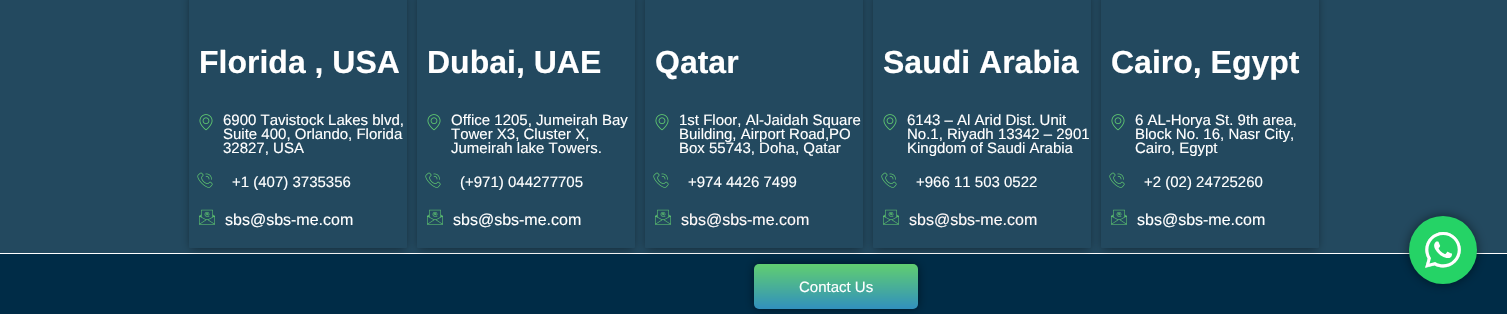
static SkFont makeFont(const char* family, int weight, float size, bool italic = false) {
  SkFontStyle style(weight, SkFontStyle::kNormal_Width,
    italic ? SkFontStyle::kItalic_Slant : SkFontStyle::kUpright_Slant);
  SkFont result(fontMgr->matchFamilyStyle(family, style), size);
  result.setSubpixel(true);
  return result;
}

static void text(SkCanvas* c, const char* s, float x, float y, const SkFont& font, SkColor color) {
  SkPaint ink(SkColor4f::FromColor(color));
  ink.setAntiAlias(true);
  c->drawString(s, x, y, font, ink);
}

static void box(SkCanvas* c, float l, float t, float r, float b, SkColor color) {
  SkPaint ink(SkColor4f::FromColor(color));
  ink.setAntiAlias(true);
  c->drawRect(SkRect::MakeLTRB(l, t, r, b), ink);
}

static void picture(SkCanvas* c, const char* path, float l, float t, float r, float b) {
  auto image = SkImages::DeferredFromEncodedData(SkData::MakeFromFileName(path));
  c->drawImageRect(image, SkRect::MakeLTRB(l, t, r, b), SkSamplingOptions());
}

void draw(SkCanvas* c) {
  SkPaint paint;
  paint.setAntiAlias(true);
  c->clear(0xffffffff);
  box(c, 0, 0, 1507, 253, 0xff23495f);
  c->save();
  c->clipPath(SkPathBuilder(SkPathFillType::kEvenOdd).moveTo(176, 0).lineTo(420, 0).lineTo(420, 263).lineTo(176, 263).close().moveTo(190, -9).lineTo(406, -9).cubicTo(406.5f, -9, 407, -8.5f, 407, -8).lineTo(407, 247).cubicTo(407, 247.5f, 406.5f, 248, 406, 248).lineTo(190, 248).cubicTo(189.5f, 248, 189, 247.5f, 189, 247).lineTo(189, -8).cubicTo(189, -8.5f, 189.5f, -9, 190, -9).close().detach(), true);
  paint.setColor(0x80000000);
  paint.setMaskFilter(SkMaskFilter::MakeBlur(kNormal_SkBlurStyle, 4.5f));
  c->drawRect(SkRect::MakeLTRB(191, -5, 405, 248), paint);
  paint.setMaskFilter(nullptr);
  c->restore();
  SkFont face1 = makeFont("Liberation Sans", 700, 32);
  text(c, "Florida , USA", 199, 73, face1, 0xffffffff);
  picture(c, "img_01.png", 199, 114, 213, 131);
  SkFont face2 = makeFont("Liberation Sans", 400, 15);
  text(c, "6900 Tavistock Lakes blvd,", 223, 125, face2, 0xffffffff);
  text(c, "Suite 400, Orlando, Florida", 223, 139, face2, 0xffffffff);
  text(c, "32827, USA", 223, 153, face2, 0xffffffff);
  picture(c, "img_02.png", 197, 172, 213, 188);
  text(c, "+1 (407) 3735356", 232, 187, face2, 0xffffffff);
  picture(c, "img_03.png", 199, 209, 215, 225);
  SkFont face3 = makeFont("Liberation Sans", 400, 16);
  text(c, "sbs@sbs-me.com", 225, 225, face3, 0xffffffff);
  c->save();
  c->clipPath(SkPathBuilder(SkPathFillType::kEvenOdd).moveTo(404, 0).lineTo(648, 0).lineTo(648, 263).lineTo(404, 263).close().moveTo(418, -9).lineTo(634, -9).cubicTo(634.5f, -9, 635, -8.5f, 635, -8).lineTo(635, 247).cubicTo(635, 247.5f, 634.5f, 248, 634, 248).lineTo(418, 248).cubicTo(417.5f, 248, 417, 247.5f, 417, 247).lineTo(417, -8).cubicTo(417, -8.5f, 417.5f, -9, 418, -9).close().detach(), true);
  paint.setMaskFilter(SkMaskFilter::MakeBlur(kNormal_SkBlurStyle, 4.5f));
  c->drawRect(SkRect::MakeLTRB(419, -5, 633, 248), paint);
  paint.setMaskFilter(nullptr);
  c->restore();
  text(c, "Dubai, UAE", 427, 73, face1, 0xffffffff);
  picture(c, "img_01.png", 427, 114, 441, 131);
  text(c, "Office 1205, Jumeirah Bay", 451, 125, face2, 0xffffffff);
  text(c, "Tower X3, Cluster X,", 451, 139, face2, 0xffffffff);
  text(c, "Jumeirah lake Towers.", 451, 153, face2, 0xffffffff);
  picture(c, "img_02.png", 425, 172, 441, 188);
  text(c, "(+971) 044277705", 460, 187, face2, 0xffffffff);
  picture(c, "img_03.png", 427, 209, 443, 225);
  text(c, "sbs@sbs-me.com", 453, 225, face3, 0xffffffff);
  c->save();
  c->clipPath(SkPathBuilder(SkPathFillType::kEvenOdd).moveTo(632, 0).lineTo(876, 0).lineTo(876, 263).lineTo(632, 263).close().moveTo(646, -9).lineTo(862, -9).cubicTo(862.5f, -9, 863, -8.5f, 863, -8).lineTo(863, 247).cubicTo(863, 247.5f, 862.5f, 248, 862, 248).lineTo(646, 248).cubicTo(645.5f, 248, 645, 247.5f, 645, 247).lineTo(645, -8).cubicTo(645, -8.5f, 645.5f, -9, 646, -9).close().detach(), true);
  paint.setMaskFilter(SkMaskFilter::MakeBlur(kNormal_SkBlurStyle, 4.5f));
  c->drawRect(SkRect::MakeLTRB(647, -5, 861, 248), paint);
  paint.setMaskFilter(nullptr);
  c->restore();
  text(c, "Qatar", 655, 73, face1, 0xffffffff);
  picture(c, "img_01.png", 655, 114, 669, 131);
  text(c, "1st Floor, Al-Jaidah Square", 679, 125, face2, 0xffffffff);
  text(c, "Building, Airport Road,PO", 679, 139, face2, 0xffffffff);
  text(c, "Box 55743, Doha, Qatar", 679, 153, face2, 0xffffffff);
  picture(c, "img_02.png", 653, 172, 669, 188);
  text(c, "+974 4426 7499", 688, 187, face2, 0xffffffff);
  picture(c, "img_03.png", 655, 209, 671, 225);
  text(c, "sbs@sbs-me.com", 681, 225, face3, 0xfffff9f9);
  c->save();
  c->clipPath(SkPathBuilder(SkPathFillType::kEvenOdd).moveTo(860, 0).lineTo(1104, 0).lineTo(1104, 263).lineTo(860, 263).close().moveTo(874, -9).lineTo(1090, -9).cubicTo(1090.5f, -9, 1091, -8.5f, 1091, -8).lineTo(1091, 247).cubicTo(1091, 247.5f, 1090.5f, 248, 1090, 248).lineTo(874, 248).cubicTo(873.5f, 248, 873, 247.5f, 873, 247).lineTo(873, -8).cubicTo(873, -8.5f, 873.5f, -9, 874, -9).close().detach(), true);
  paint.setMaskFilter(SkMaskFilter::MakeBlur(kNormal_SkBlurStyle, 4.5f));
  c->drawRect(SkRect::MakeLTRB(875, -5, 1089, 248), paint);
  paint.setMaskFilter(nullptr);
  c->restore();
  text(c, "Saudi Arabia", 883, 73, face1, 0xffffffff);
  picture(c, "img_01.png", 883, 114, 897, 131);
  text(c, "6143 – Al Arid Dist. Unit", 907, 125, face2, 0xffffffff);
  text(c, "No.1, Riyadh 13342 – 2901", 907, 139, face2, 0xffffffff);
  text(c, "Kingdom of Saudi Arabia", 907, 153, face2, 0xffffffff);
  picture(c, "img_02.png", 881, 172, 897, 188);
  text(c, "+966 11 503 0522", 916, 187, face2, 0xffffffff);
  picture(c, "img_03.png", 883, 209, 899, 225);
  text(c, "sbs@sbs-me.com", 909, 225, face3, 0xfffff9f9);
  c->save();
  c->clipPath(SkPathBuilder(SkPathFillType::kEvenOdd).moveTo(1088, 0).lineTo(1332, 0).lineTo(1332, 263).lineTo(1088, 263).close().moveTo(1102, -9).lineTo(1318, -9).cubicTo(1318.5f, -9, 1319, -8.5f, 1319, -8).lineTo(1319, 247).cubicTo(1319, 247.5f, 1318.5f, 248, 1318, 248).lineTo(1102, 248).cubicTo(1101.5f, 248, 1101, 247.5f, 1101, 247).lineTo(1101, -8).cubicTo(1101, -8.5f, 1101.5f, -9, 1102, -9).close().detach(), true);
  paint.setMaskFilter(SkMaskFilter::MakeBlur(kNormal_SkBlurStyle, 4.5f));
  c->drawRect(SkRect::MakeLTRB(1103, -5, 1317, 248), paint);
  paint.setMaskFilter(nullptr);
  c->restore();
  text(c, "Cairo, Egypt", 1111, 73, face1, 0xffffffff);
  picture(c, "img_01.png", 1111, 114, 1125, 131);
  text(c, "6 AL-Horya St. 9th area,", 1135, 125, face2, 0xffffffff);
  text(c, "Block No. 16, Nasr City,", 1135, 139, face2, 0xffffffff);
  text(c, "Cairo, Egypt", 1135, 153, face2, 0xffffffff);
  picture(c, "img_02.png", 1109, 172, 1125, 188);
  text(c, "+2 (02) 24725260", 1144, 187, face2, 0xffffffff);
  picture(c, "img_03.png", 1111, 209, 1127, 225);
  text(c, "sbs@sbs-me.com", 1137, 225, face3, 0xffffffff);
  box(c, 0, 254, 1507, 314, 0xff002c47);
  paint.setMaskFilter(SkMaskFilter::MakeBlur(kNormal_SkBlurStyle, 5));
  c->drawRoundRect(SkRect::MakeLTRB(754, 264, 918, 309), 5, 5, paint);
  paint.setMaskFilter(nullptr);
  {
    const SkColor colors[] = {0xff61ce70, 0xff3190be};
    const float stops[] = {0, 1};
    const SkPoint ends[] = {{836, 264}, {836, 309}};
    paint.setShader(SkGradientShader::MakeLinear(ends, colors, stops, 2, SkTileMode::kClamp));
    paint.setAlpha(255);
  }
  c->drawRoundRect(SkRect::MakeLTRB(754, 264, 918, 309), 5, 5, paint);
  text(c, "Contact Us", 799, 292, face2, 0xffffffff);
  paint.setShader(nullptr);
  paint.setColor(0x80000000);
  paint.setMaskFilter(SkMaskFilter::MakeBlur(kNormal_SkBlurStyle, 5.5f));
  c->drawRoundRect(SkRect::MakeLTRB(1409, 216, 1477, 284), 34, 34, paint);
  paint.setMaskFilter(nullptr);
  paint.setColor(0xff25d366);
  c->drawCircle(1443, 250, 34, paint);
  picture(c, "img_04.png", 1425, 232, 1461, 268);
}
